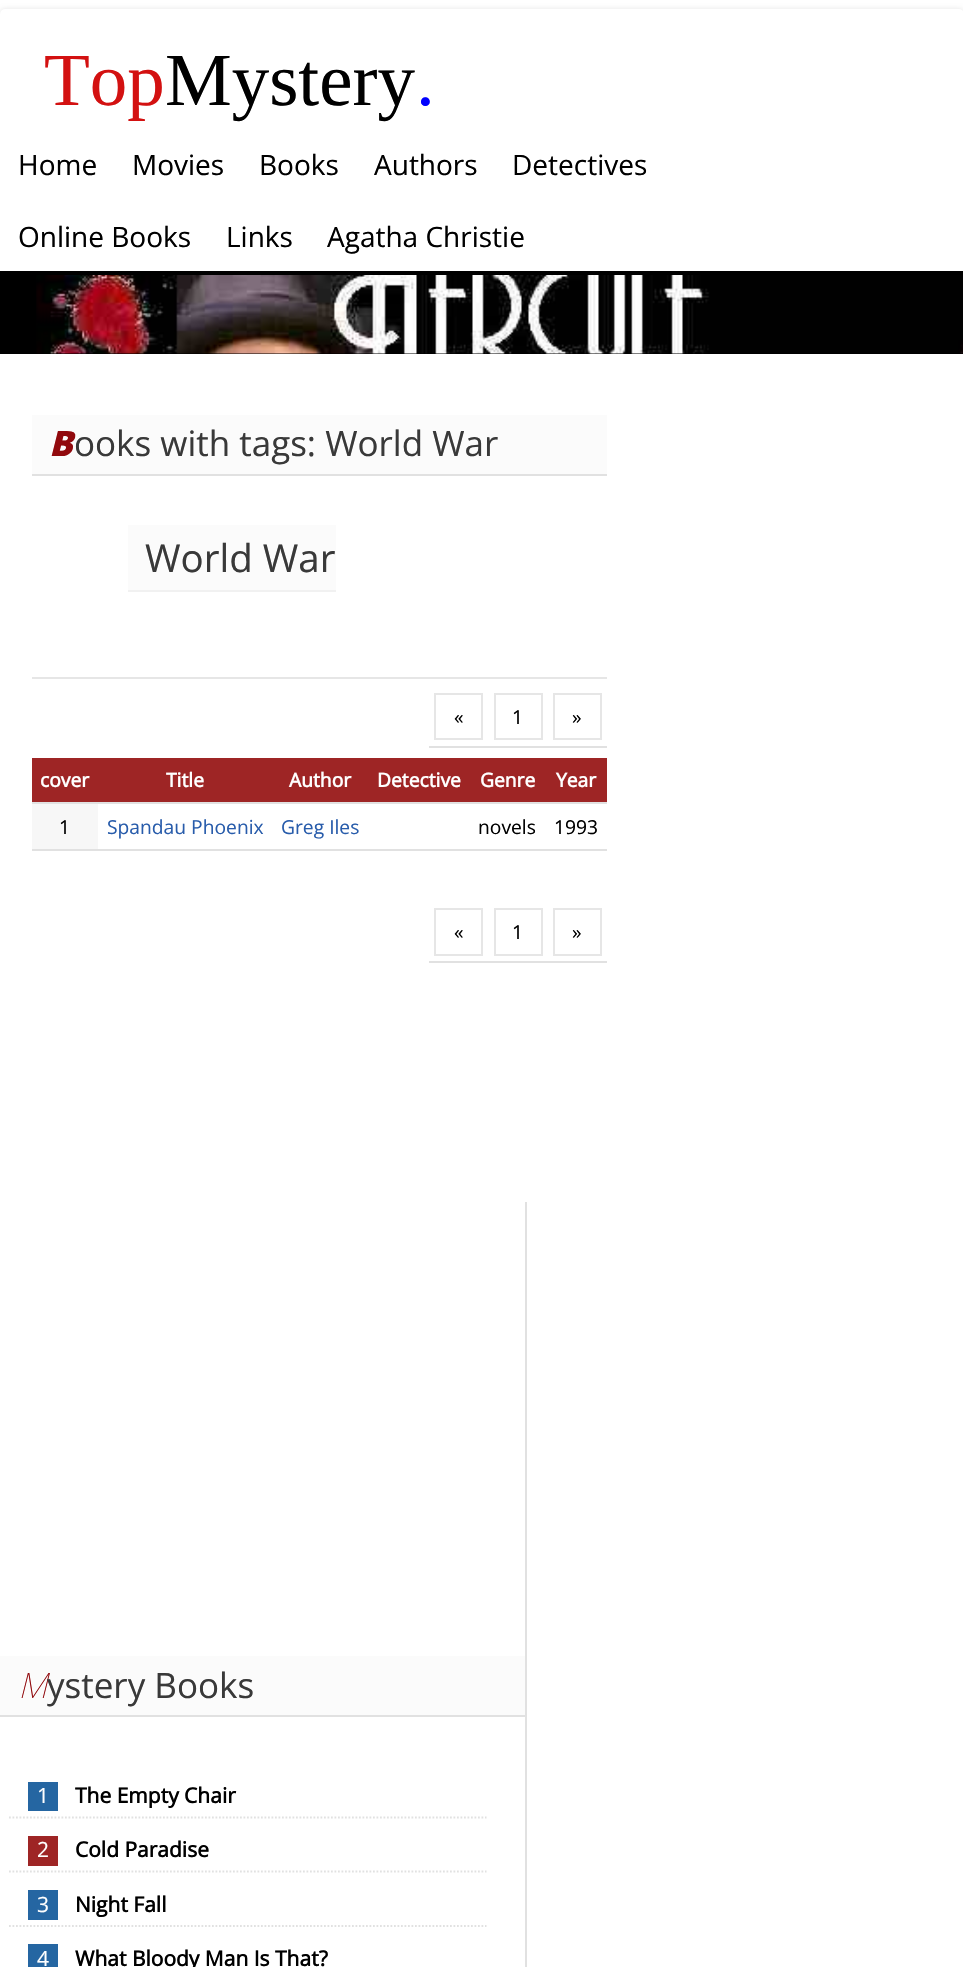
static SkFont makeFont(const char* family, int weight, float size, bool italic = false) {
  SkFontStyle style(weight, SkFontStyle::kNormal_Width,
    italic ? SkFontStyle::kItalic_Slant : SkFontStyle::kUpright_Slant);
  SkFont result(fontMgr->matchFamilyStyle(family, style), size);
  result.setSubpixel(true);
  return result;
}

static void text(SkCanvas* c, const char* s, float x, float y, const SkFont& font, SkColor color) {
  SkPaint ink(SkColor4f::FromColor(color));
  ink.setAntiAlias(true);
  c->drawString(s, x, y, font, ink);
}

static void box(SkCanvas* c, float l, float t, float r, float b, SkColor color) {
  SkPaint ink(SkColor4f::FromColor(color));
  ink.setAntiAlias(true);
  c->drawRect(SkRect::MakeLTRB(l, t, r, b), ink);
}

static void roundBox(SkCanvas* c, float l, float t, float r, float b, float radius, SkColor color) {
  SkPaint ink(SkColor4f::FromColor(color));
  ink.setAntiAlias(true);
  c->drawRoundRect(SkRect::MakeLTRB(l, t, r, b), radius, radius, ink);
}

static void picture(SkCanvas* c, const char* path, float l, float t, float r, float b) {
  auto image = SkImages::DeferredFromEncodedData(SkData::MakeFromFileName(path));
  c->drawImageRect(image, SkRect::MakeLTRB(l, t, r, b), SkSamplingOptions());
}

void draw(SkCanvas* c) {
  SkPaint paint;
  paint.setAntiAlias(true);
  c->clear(0xffffffff);
  paint.setColor(0x1a000000);
  paint.setMaskFilter(SkMaskFilter::MakeBlur(kNormal_SkBlurStyle, 2.5f));
  c->drawRoundRect(SkRect::MakeLTRB(0, 9, 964, 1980), 5, 5, paint);
  paint.setMaskFilter(nullptr);
  roundBox(c, 0, 9, 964, 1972, 5, 0xffffffff);
  SkFont face1 = makeFont("Liberation Serif", 400, 75);
  text(c, "Top", 44, 105, face1, 0xffd31111);
  text(c, "Mystery", 165, 105, face1, 0xff000000);
  text(c, ".", 416, 105, face1, 0xff0000ff);
  SkFont face2 = makeFont("Open Sans", 400, 28);
  text(c, "Home", 18, 175, face2, 0xff000000);
  text(c, "Movies", 132, 175, face2, 0xff000000);
  text(c, "Books", 259, 175, face2, 0xff000000);
  text(c, "Authors", 374, 175, face2, 0xff000000);
  text(c, "Detectives", 512, 175, face2, 0xff000000);
  text(c, "Online Books", 18, 247, face2, 0xff000000);
  text(c, "Links", 226, 247, face2, 0xff000000);
  text(c, "Agatha Christie", 327, 247, face2, 0xff000000);
  box(c, 0, 271, 963, 354, 0xff000000);
  picture(c, "img_01.png", 36, 275, 963, 354);
  box(c, 32, 415, 607, 474, 0xfffbfbfb);
  box(c, 32, 474, 607, 476, 0xffe1e1e1);
  SkFont face3 = makeFont("Noto Sans", 900, 35, true);
  text(c, "B", 49, 456, face3, 0xff91090d);
  SkFont face4 = makeFont("Open Sans", 400, 35);
  text(c, "ooks with tags: World War", 74, 456, face4, 0xff393939);
  box(c, 32, 677, 607, 679, 0xffe6e6e6);
  box(c, 128, 525, 336, 590, 0xfffbfbfb);
  box(c, 128, 590, 336, 592, 0xfff1f1f1);
  SkFont face5 = makeFont("Open Sans", 400, 38.5f);
  text(c, "World War", 145, 572, face5, 0xff393939);
  box(c, 429, 746, 607, 748, 0xffe1e1e1);
  paint.setStyle(SkPaint::kStroke_Style);
  paint.setStrokeWidth(2);
  paint.setColor(0xffe6e6e6);
  c->drawRect(SkRect::MakeLTRB(435, 694, 482, 739), paint);
  SkFont face6 = makeFont("Open Sans", 400, 19.25f);
  text(c, "«", 454, 724, face6, 0xff000000);
  c->drawRect(SkRect::MakeLTRB(495, 694, 542, 739), paint);
  text(c, "1", 512, 724, face6, 0xff000000);
  c->drawRect(SkRect::MakeLTRB(554, 694, 601, 739), paint);
  text(c, "»", 572, 724, face6, 0xff000000);
  box(c, 32, 758, 607, 802, 0xff9e2525);
  box(c, 32, 802, 607, 804, 0xffe1e1e1);
  SkFont face7 = makeFont("Open Sans", 700, 19.25f);
  text(c, "cover", 40, 787, face7, 0xffffffff);
  text(c, "Title", 166, 787, face7, 0xffffffff);
  text(c, "Author", 289, 787, face7, 0xffffffff);
  text(c, "Detective", 377, 787, face7, 0xffffffff);
  text(c, "Genre", 480, 787, face7, 0xffffffff);
  text(c, "Year", 556, 787, face7, 0xffffffff);
  box(c, 32, 849, 607, 851, 0xffe1e1e1);
  box(c, 32, 804, 98, 849, 0xfff7f7f7);
  text(c, "1", 59, 834, face6, 0xff000000);
  text(c, "Spandau Phoenix", 107, 834, face6, 0xff285cab);
  text(c, "Greg Iles", 281, 834, face6, 0xff285cab);
  text(c, "novels", 478, 834, face6, 0xff000000);
  text(c, "1993", 554, 834, face6, 0xff000000);
  box(c, 429, 961, 607, 963, 0xffe1e1e1);
  c->drawRect(SkRect::MakeLTRB(435, 909, 482, 955), paint);
  text(c, "«", 454, 939, face6, 0xff000000);
  c->drawRect(SkRect::MakeLTRB(495, 909, 542, 955), paint);
  text(c, "1", 512, 939, face6, 0xff000000);
  c->drawRect(SkRect::MakeLTRB(554, 909, 601, 955), paint);
  text(c, "»", 572, 939, face6, 0xff000000);
  box(c, 525, 1202, 527, 1967, 0xffe1e1e1);
  box(c, 0, 1656, 525, 1715, 0xfffbfbfb);
  box(c, 0, 1715, 525, 1717, 0xffe1e1e1);
  SkFont face8 = makeFont("Noto Sans", 100, 35, true);
  text(c, "M", 18, 1698, face8, 0xff91090d);
  text(c, "ystery Books", 47, 1698, face4, 0xff393939);
  paint.setStrokeWidth(1.8f);
  paint.setColor(0xffe1e1e1);
  paint.setPathEffect(SkDashPathEffect::Make({{1.75f, 1.75f}}, 0));
  c->drawPath(SkPathBuilder().moveTo(9, 1817.5f).lineTo(486.5f, 1817.5f).detach(), paint);
  paint.setPathEffect(nullptr);
  box(c, 28, 1782, 58, 1811, 0xff2566a2);
  SkFont face9 = makeFont("Open Sans", 400, 21);
  text(c, "1", 37, 1803, face9, 0xffffffff);
  SkFont face10 = makeFont("Open Sans", 700, 21);
  text(c, "The Empty Chair", 75, 1803, face10, 0xff000000);
  paint.setPathEffect(SkDashPathEffect::Make({{1.75f, 1.75f}}, 0));
  c->drawPath(SkPathBuilder().moveTo(9, 1871.5f).lineTo(486.5f, 1871.5f).detach(), paint);
  paint.setPathEffect(nullptr);
  box(c, 28, 1836, 58, 1866, 0xff9e2525);
  text(c, "2", 37, 1857, face9, 0xffffffff);
  text(c, "Cold Paradise", 75, 1857, face10, 0xff000000);
  paint.setPathEffect(SkDashPathEffect::Make({{1.75f, 1.75f}}, 0));
  c->drawPath(SkPathBuilder().moveTo(9, 1926).lineTo(486.5f, 1926).detach(), paint);
  paint.setPathEffect(nullptr);
  box(c, 28, 1890, 58, 1920, 0xff2566a2);
  text(c, "3", 37, 1912, face9, 0xffffffff);
  text(c, "Night Fall", 75, 1912, face10, 0xff000000);
  box(c, 28, 1944, 58, 1967, 0xff2566a2);
  text(c, "4", 37, 1966, face9, 0xffffffff);
  text(c, "What Bloody Man Is That?", 75, 1966, face10, 0xff000000);
}
